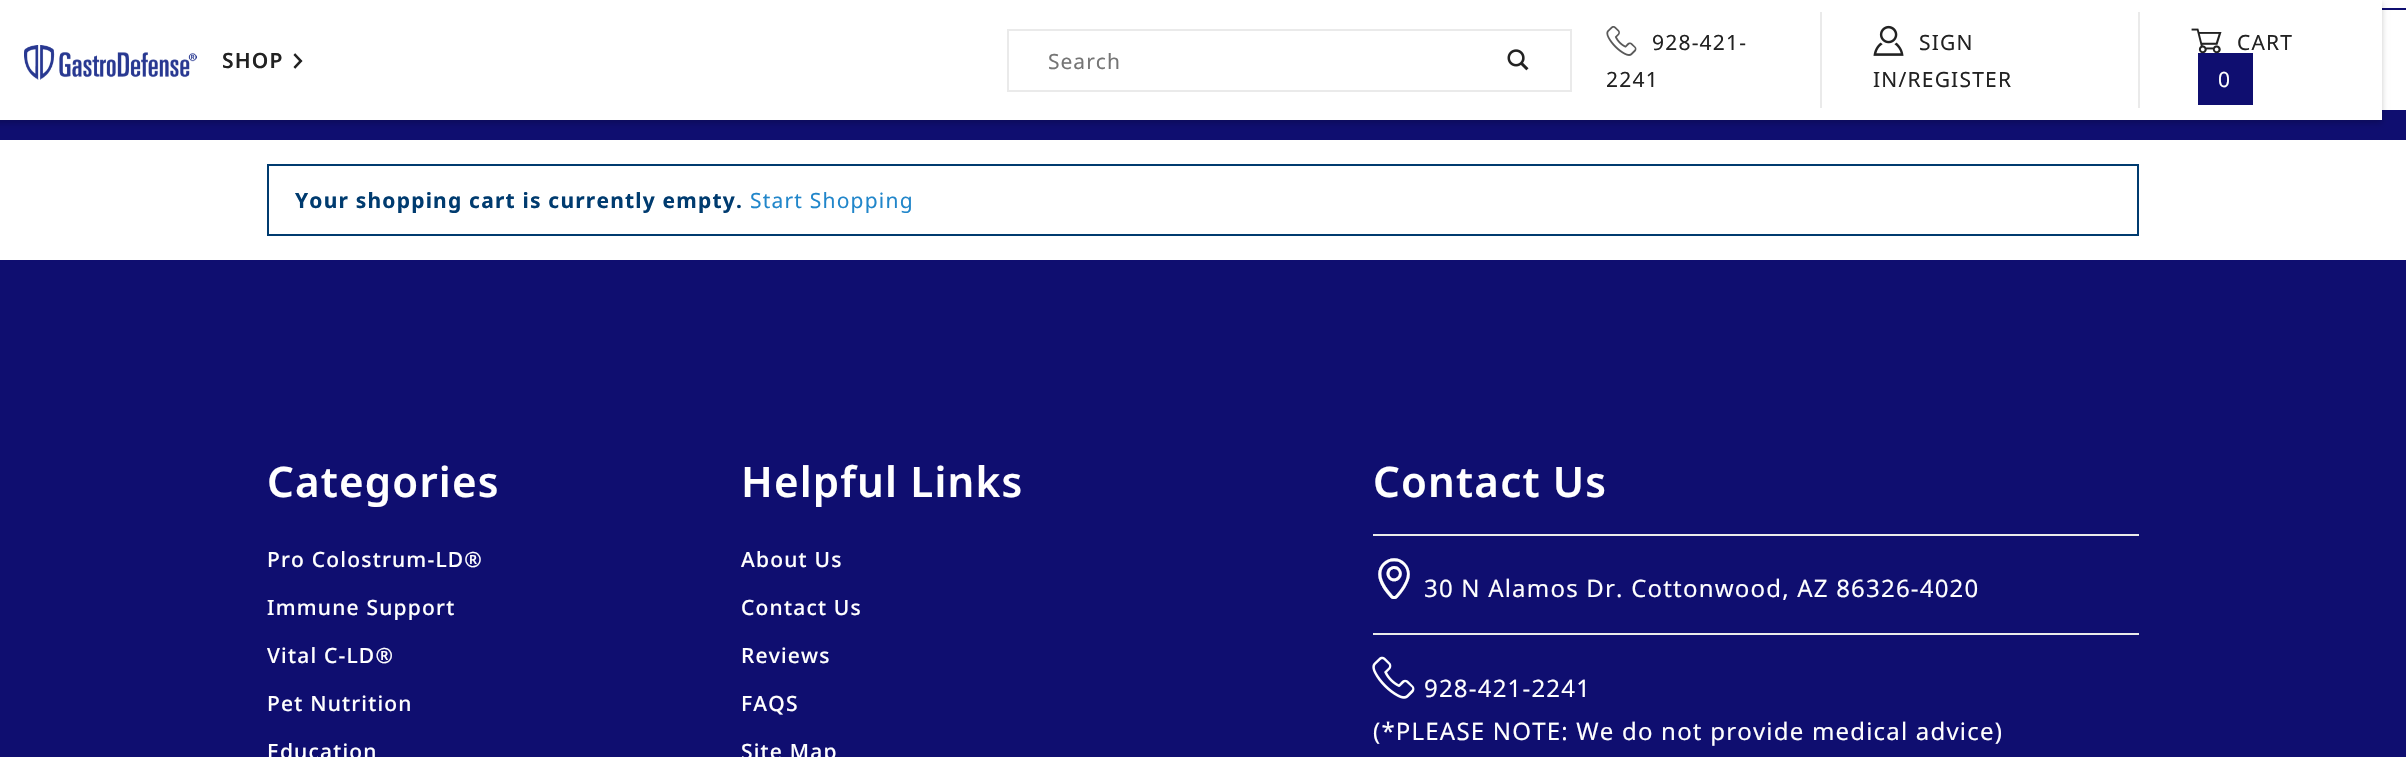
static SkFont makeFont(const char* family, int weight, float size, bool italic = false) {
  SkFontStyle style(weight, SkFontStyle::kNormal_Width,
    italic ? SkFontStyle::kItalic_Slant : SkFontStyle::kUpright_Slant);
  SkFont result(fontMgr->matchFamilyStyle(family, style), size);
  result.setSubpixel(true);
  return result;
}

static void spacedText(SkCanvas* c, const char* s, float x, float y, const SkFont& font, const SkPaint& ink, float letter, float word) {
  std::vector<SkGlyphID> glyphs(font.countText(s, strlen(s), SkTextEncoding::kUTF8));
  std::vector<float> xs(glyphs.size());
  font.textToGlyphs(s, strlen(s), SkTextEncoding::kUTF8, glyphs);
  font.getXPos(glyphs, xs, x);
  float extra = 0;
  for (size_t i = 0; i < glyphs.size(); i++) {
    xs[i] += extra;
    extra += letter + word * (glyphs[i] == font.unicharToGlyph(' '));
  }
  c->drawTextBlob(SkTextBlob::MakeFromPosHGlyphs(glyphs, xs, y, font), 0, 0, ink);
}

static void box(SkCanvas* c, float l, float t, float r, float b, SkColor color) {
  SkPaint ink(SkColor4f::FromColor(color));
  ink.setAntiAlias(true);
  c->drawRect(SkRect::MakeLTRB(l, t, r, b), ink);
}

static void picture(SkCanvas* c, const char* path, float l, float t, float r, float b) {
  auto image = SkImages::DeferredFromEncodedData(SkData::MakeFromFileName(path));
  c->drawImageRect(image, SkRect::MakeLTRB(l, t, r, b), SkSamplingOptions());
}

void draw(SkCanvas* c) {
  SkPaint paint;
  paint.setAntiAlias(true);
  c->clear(0xffffffff);
  box(c, 2382, 8, 2406, 10, 0xff0f0e70);
  box(c, 0, 110, 2406, 140, 0xff0f0e70);
  paint.setColor(0x33000000);
  paint.setMaskFilter(SkMaskFilter::MakeBlur(kNormal_SkBlurStyle, 3));
  c->drawRect(SkRect::MakeLTRB(-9, 3, 2382, 123), paint);
  paint.setMaskFilter(nullptr);
  box(c, 0, 0, 2382, 120, 0xffffffff);
  picture(c, "img_01.png", 24, 45, 197, 80);
  SkFont face1 = makeFont("Noto Sans", 600, 21);
  paint.setColor(0xff222222);
  spacedText(c, "SHOP", 222, 68, face1, paint, 1.2f, 0);
  SkFont face2 = makeFont("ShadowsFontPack", 400, 16);
  spacedText(c, "3", 290, 68, face2, paint, 1.2f, 0);
  paint.setStyle(SkPaint::kStroke_Style);
  paint.setStrokeWidth(2);
  paint.setColor(0xffeaeaea);
  c->drawRect(SkRect::MakeLTRB(1008, 30, 1571, 91), paint);
  SkFont face3 = makeFont("Noto Sans", 400, 21);
  paint.setStyle(SkPaint::kFill_Style);
  paint.setColor(0xff757575);
  spacedText(c, "Search", 1048, 69, face3, paint, 1, 0);
  picture(c, "img_02.png", 1507, 49, 1529, 71);
  box(c, 1820, 12, 1822, 108, 0xffeaeaea);
  picture(c, "img_03.png", 1606, 26, 1637, 56);
  paint.setColor(0xff222222);
  spacedText(c, "928-421-", 1652, 50, face3, paint, 1.2f, 0);
  spacedText(c, "2241", 1606, 87, face3, paint, 1.2f, 0);
  box(c, 2138, 12, 2140, 108, 0xffeaeaea);
  picture(c, "img_04.png", 1873, 25, 1904, 56);
  spacedText(c, "SIGN", 1919, 50, face3, paint, 1.2f, 0);
  spacedText(c, "IN/REGISTER", 1873, 87, face3, paint, 1.2f, 0);
  picture(c, "img_05.png", 2191, 28, 2222, 53);
  spacedText(c, "CART", 2237, 50, face3, paint, 1.2f, 0);
  box(c, 2198, 53, 2253, 105, 0xff0f0e70);
  paint.setColor(0xffffffff);
  spacedText(c, "0", 2218, 87, face3, paint, 1.2f, 0);
  paint.setStyle(SkPaint::kStroke_Style);
  paint.setColor(0xff003b6f);
  c->drawRect(SkRect::MakeLTRB(268, 165, 2138, 235), paint);
  SkFont face4 = makeFont("Noto Sans", 700, 21);
  paint.setStyle(SkPaint::kFill_Style);
  spacedText(c, "Your shopping cart is currently empty.", 295, 208, face4, paint, 1.2f, 0);
  paint.setColor(0xff2186ca);
  spacedText(c, "Start Shopping", 750, 208, face3, paint, 1.2f, 0);
  box(c, 0, 260, 2406, 757, 0xff0f0e70);
  SkFont face5 = makeFont("Noto Sans", 600, 42);
  paint.setColor(0xffffffff);
  spacedText(c, "Categories", 267, 497, face5, paint, 1.2f, 0);
  SkFont face6 = makeFont("Noto Sans", 500, 21);
  spacedText(c, "Pro Colostrum-LD®", 267, 567, face6, paint, 1.2f, 0);
  spacedText(c, "Immune Support", 267, 615, face6, paint, 1.2f, 0);
  spacedText(c, "Vital C-LD®", 267, 663, face6, paint, 1.2f, 0);
  spacedText(c, "Pet Nutrition", 267, 711, face6, paint, 1.2f, 0);
  spacedText(c, "Education", 267, 759, face6, paint, 1.2f, 0);
  spacedText(c, "Helpful Links", 741, 497, face5, paint, 1.2f, 0);
  spacedText(c, "About Us", 741, 567, face6, paint, 1.2f, 0);
  spacedText(c, "Contact Us", 741, 615, face6, paint, 1.2f, 0);
  spacedText(c, "Reviews", 741, 663, face6, paint, 1.2f, 0);
  spacedText(c, "FAQS", 741, 711, face6, paint, 1.2f, 0);
  spacedText(c, "Site Map", 741, 759, face6, paint, 1.2f, 0);
  spacedText(c, "Contact Us", 1373, 497, face5, paint, 1.2f, 0);
  box(c, 1373, 534, 2139, 536, 0xffeaeaea);
  SkFont face7 = makeFont("ShadowsFontPack", 400, 42);
  spacedText(c, "\\", 1373, 597, face7, paint, 1.2f, 0);
  SkFont face8 = makeFont("Noto Sans", 400, 24);
  spacedText(c, "30 N Alamos Dr. Cottonwood, AZ 86326-4020", 1424, 597, face8, paint, 1.2f, 0);
  box(c, 1373, 633, 2139, 635, 0xffeaeaea);
  picture(c, "img_06.png", 1372, 656, 1415, 699);
  spacedText(c, "928-421-2241", 1424, 697, face8, paint, 1.2f, 0);
  spacedText(c, "(*PLEASE NOTE: We do not provide medical advice)", 1373, 740, face8, paint, 1.2f, 0);
}
